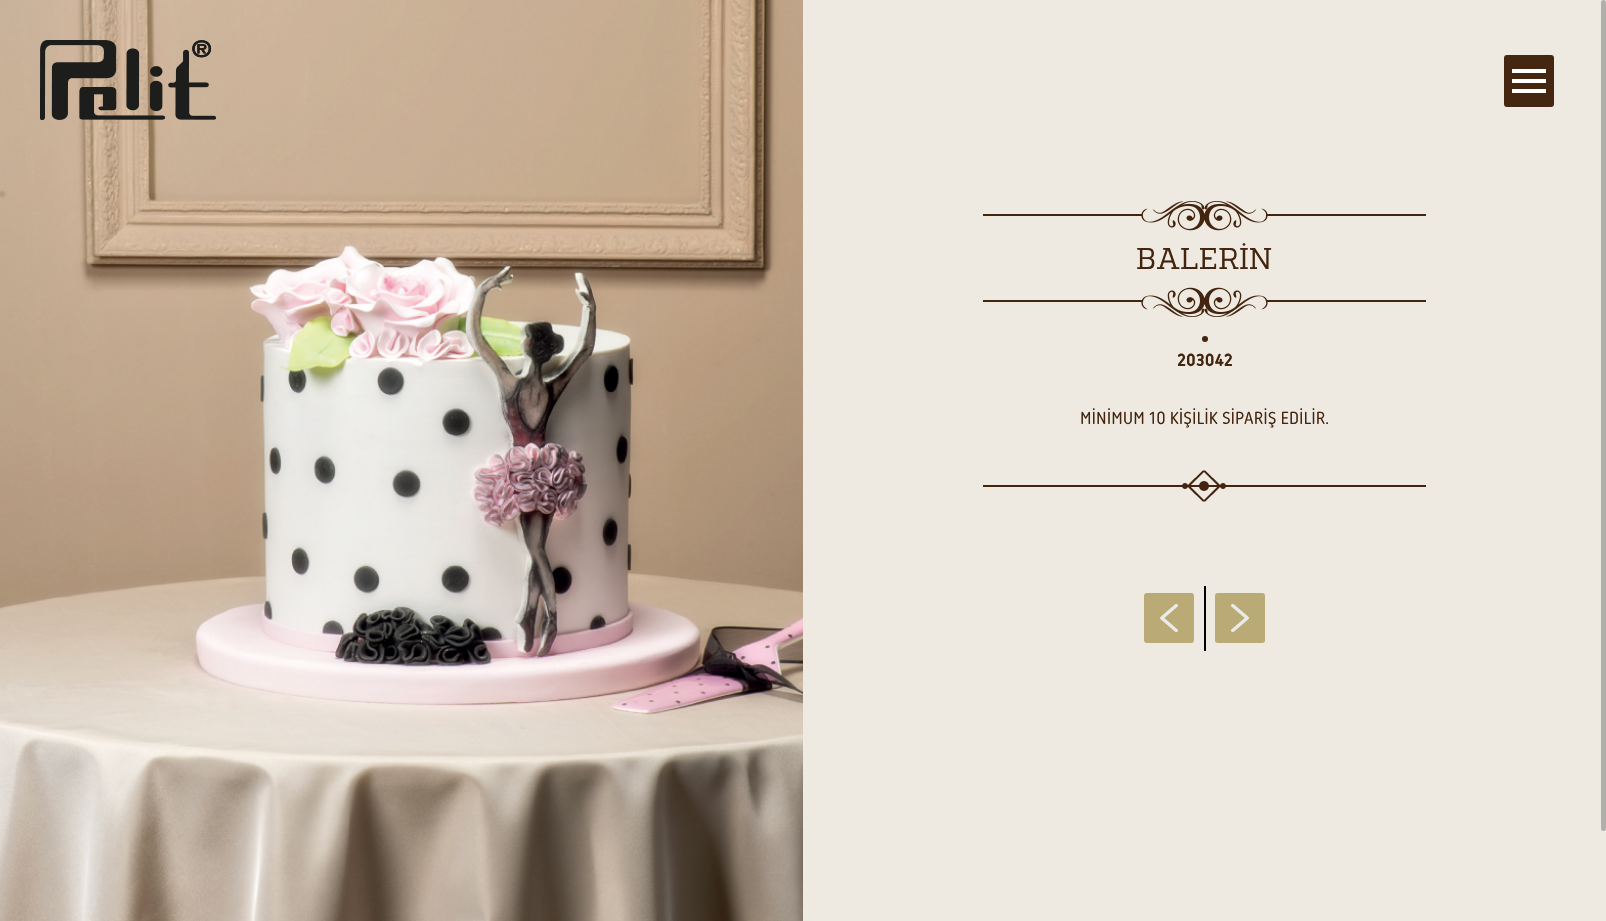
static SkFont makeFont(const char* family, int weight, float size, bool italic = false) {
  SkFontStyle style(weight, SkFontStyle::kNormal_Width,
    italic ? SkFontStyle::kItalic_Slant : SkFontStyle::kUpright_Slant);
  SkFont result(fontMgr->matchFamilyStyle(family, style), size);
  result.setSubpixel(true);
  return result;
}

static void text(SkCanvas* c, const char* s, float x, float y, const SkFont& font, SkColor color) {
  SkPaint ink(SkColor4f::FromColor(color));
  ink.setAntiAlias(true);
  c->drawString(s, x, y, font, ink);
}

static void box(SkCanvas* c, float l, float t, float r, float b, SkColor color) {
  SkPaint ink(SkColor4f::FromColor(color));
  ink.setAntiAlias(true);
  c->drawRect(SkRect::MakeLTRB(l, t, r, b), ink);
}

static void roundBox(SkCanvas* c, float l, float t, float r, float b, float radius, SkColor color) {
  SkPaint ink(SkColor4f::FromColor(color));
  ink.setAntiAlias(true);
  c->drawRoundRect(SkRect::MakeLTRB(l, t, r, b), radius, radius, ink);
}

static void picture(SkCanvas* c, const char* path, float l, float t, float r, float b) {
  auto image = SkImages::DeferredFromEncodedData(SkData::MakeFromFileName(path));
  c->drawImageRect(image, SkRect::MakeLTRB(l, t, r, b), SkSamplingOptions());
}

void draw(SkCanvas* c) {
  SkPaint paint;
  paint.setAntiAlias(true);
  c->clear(0xffffffff);
  picture(c, "img_02.png", 0, 0, 803, 921);
  picture(c, "img_01.png", 40, 40, 216, 120);
  box(c, 803, 0, 1606, 921, 0xffeeeae2);
  roundBox(c, 1504, 55, 1554, 107, 3, 0xff452610);
  box(c, 1512, 69, 1546, 73, 0xffffffff);
  box(c, 1512, 79, 1546, 83, 0xffffffff);
  box(c, 1512, 89, 1546, 93, 0xffffffff);
  roundBox(c, 1601, 0, 1606, 831, 2.5f, 0xffb1afab);
  picture(c, "img_03.png", 983, 201, 1426, 231);
  SkFont face1 = makeFont("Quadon", 400, 30);
  text(c, "BALERİN", 1136, 269, face1, 0xff43240e);
  picture(c, "img_04.png", 983, 287, 1426, 317);
  paint.setColor(0xff43240e);
  c->drawCircle(1205, 339, 3, paint);
  SkFont face2 = makeFont("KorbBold", 700, 18);
  text(c, "203042", 1177, 366, face2, 0xff43240e);
  SkFont face3 = makeFont("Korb", 400, 18);
  text(c, "MİNİMUM 10 KİŞİLİK SİPARİŞ EDİLİR.", 1080, 424, face3, 0xff43240e);
  picture(c, "img_05.png", 983, 470, 1426, 502);
  roundBox(c, 1144, 593, 1194, 643, 3, 0xffbaaa76);
  picture(c, "img_06.png", 1160, 604, 1178, 632);
  box(c, 1204, 586, 1206, 651, 0xff000000);
  roundBox(c, 1215, 593, 1265, 643, 3, 0xffbaaa76);
  picture(c, "img_07.png", 1231, 604, 1249, 632);
}
